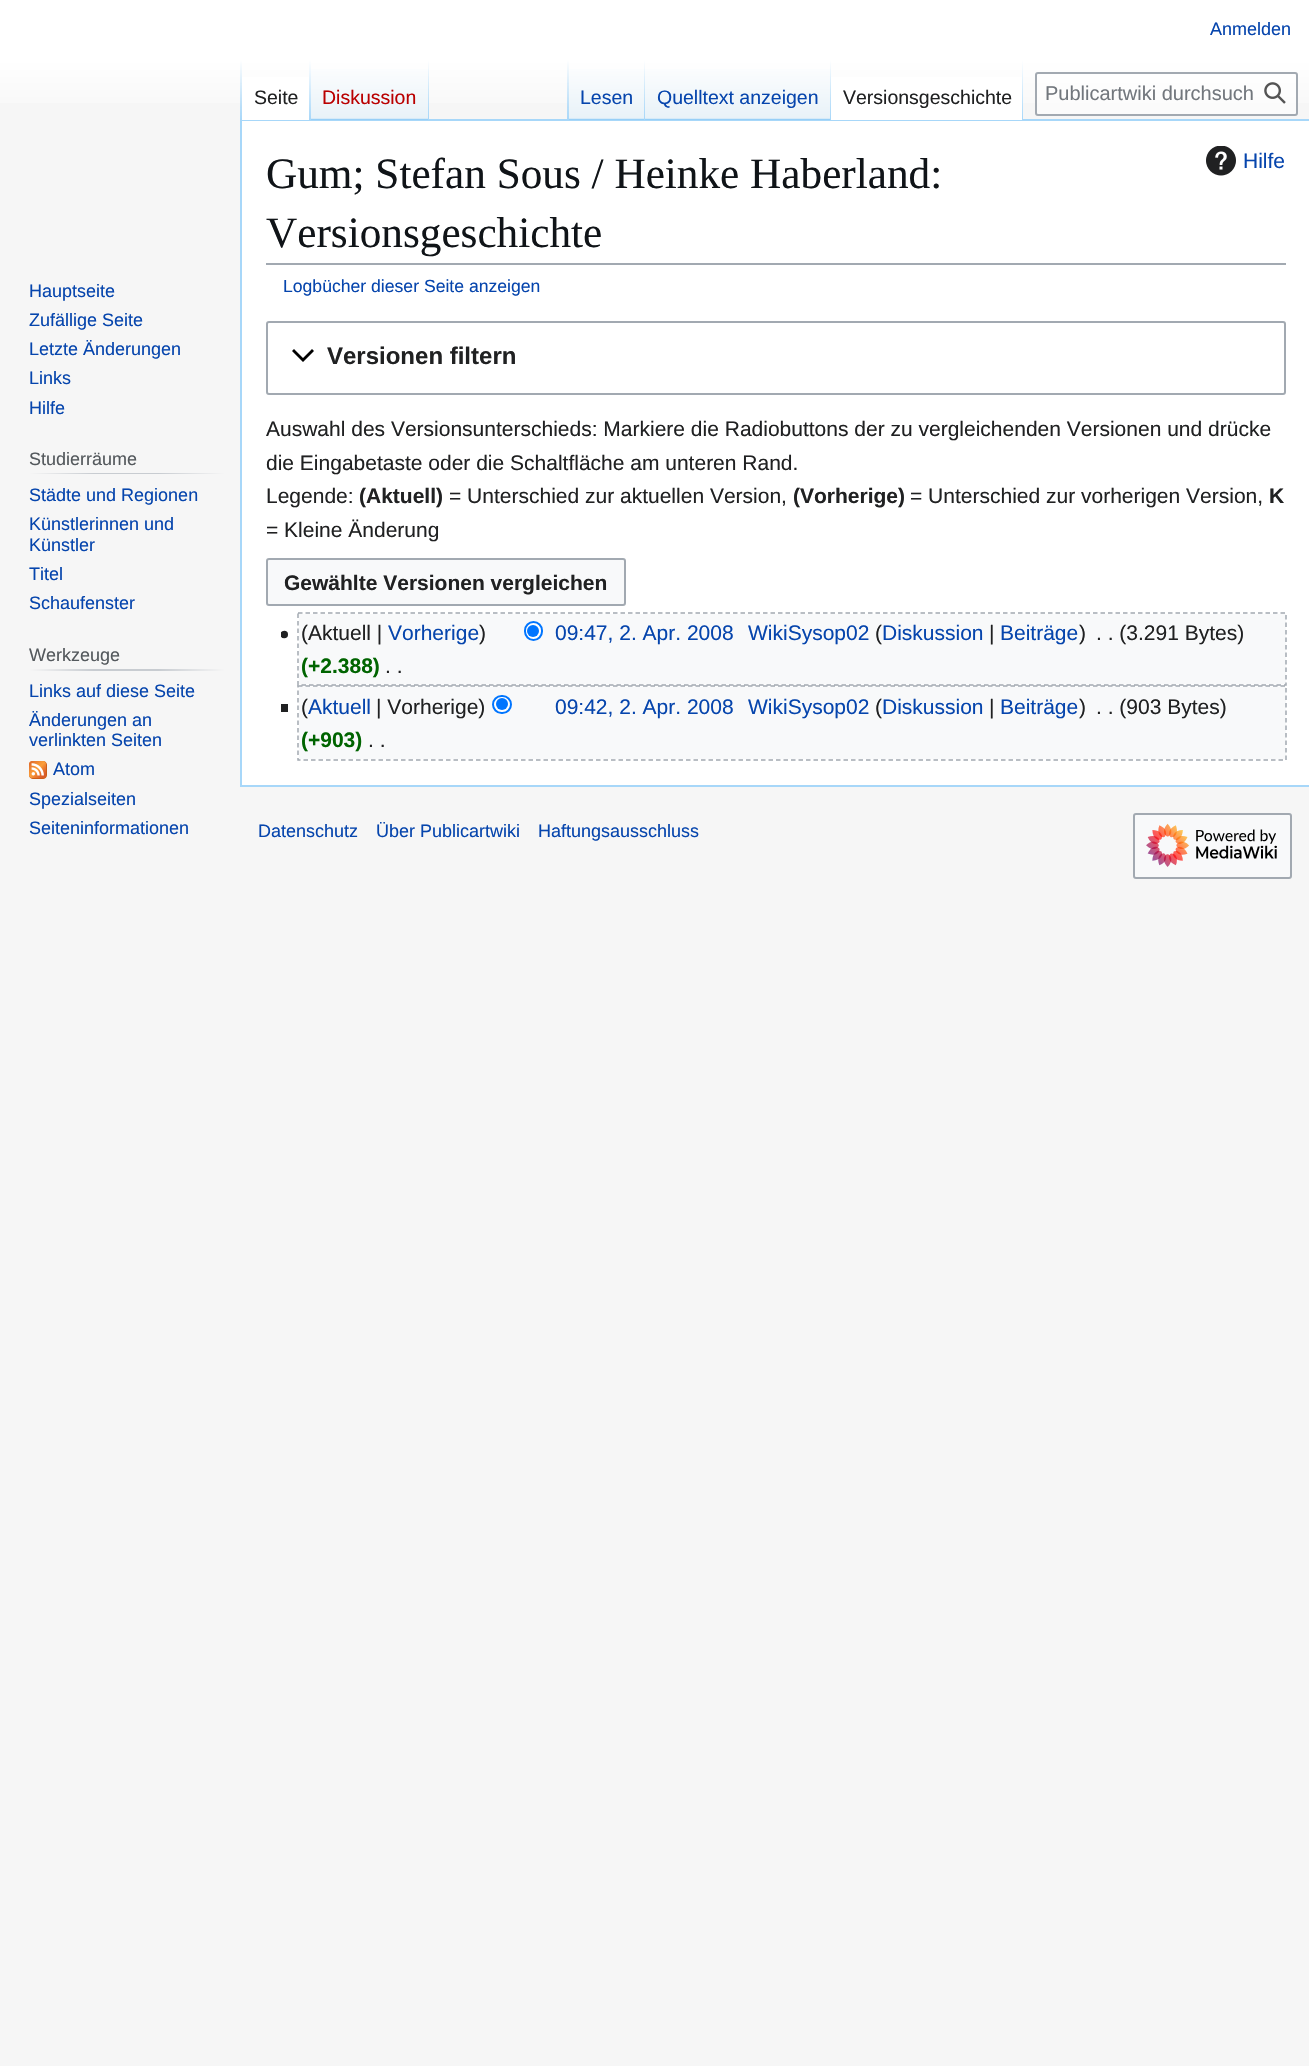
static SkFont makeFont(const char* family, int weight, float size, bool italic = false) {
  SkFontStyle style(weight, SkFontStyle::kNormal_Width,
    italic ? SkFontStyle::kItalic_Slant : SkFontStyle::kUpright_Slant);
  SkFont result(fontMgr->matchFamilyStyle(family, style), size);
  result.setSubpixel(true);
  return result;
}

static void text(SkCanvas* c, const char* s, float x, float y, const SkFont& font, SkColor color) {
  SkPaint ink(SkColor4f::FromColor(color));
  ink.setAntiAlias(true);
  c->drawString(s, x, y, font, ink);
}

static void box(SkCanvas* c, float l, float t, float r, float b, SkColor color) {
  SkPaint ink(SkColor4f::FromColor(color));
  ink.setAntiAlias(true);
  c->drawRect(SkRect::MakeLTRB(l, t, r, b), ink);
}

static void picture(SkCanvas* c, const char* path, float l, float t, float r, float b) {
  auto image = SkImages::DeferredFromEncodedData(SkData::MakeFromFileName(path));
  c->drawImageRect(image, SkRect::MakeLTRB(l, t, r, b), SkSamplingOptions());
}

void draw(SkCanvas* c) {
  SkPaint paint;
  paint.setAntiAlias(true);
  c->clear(0xfff6f6f6);
  {
    const SkColor colors[] = {0xffffffff, 0xfff6f6f6};
    const float stops[] = {0.5f, 1};
    const SkPoint ends[] = {{655, 0}, {655, 120}};
    paint.setShader(SkGradientShader::MakeLinear(ends, colors, stops, 2, SkTileMode::kClamp));
    paint.setAlpha(255);
  }
  c->drawRect(SkRect::MakeLTRB(0, 0, 1309, 103), paint);
  SkFont face1 = makeFont("Liberation Sans", 400, 18);
  text(c, "Anmelden", 1210, 35, face1, 0xff0645ad);
  box(c, 240, 119, 1309, 121, 0xffa7d7f9);
  box(c, 240, 785, 1309, 787, 0xffa7d7f9);
  box(c, 240, 119, 242, 786, 0xffa7d7f9);
  {
    const SkColor colors[] = {0x00a7d7f9, 0xffa7d7f9};
    const float stops[] = {0, 1};
    const SkPoint ends[] = {{241, 60}, {241, 120}};
    paint.setShader(SkGradientShader::MakeLinear(ends, colors, stops, 2, SkTileMode::kClamp));
    paint.setAlpha(255);
  }
  c->drawRect(SkRect::MakeLTRB(240, 60, 242, 120), paint);
  box(c, 242, 77, 309, 120, 0xffffffff);
  {
    const SkColor colors[] = {0xffffffff, 0xffa7d7f9};
    const float stops[] = {0, 1};
    const SkPoint ends[] = {{310, 60}, {310, 120}};
    paint.setShader(SkGradientShader::MakeLinear(ends, colors, stops, 2, SkTileMode::kClamp));
    paint.setAlpha(255);
  }
  c->drawRect(SkRect::MakeLTRB(309, 60, 311, 120), paint);
  SkFont face2 = makeFont("Liberation Sans", 400, 19.5f);
  text(c, "Seite", 254, 104, face2, 0xff202122);
  {
    const SkColor colors[] = {0xff77c1f6, 0xffe8f2f8, 0xffffffff};
    const float stops[] = {0, 0.03f, 1};
    const SkPoint ends[] = {{370, 120}, {370, 60}};
    paint.setShader(SkGradientShader::MakeLinear(ends, colors, stops, 3, SkTileMode::kClamp));
    paint.setAlpha(255);
  }
  c->drawRect(SkRect::MakeLTRB(311, 69, 429, 120), paint);
  {
    const SkColor colors[] = {0x00a7d7f9, 0xffa7d7f9};
    const float stops[] = {0, 1};
    const SkPoint ends[] = {{428, 60}, {428, 120}};
    paint.setShader(SkGradientShader::MakeLinear(ends, colors, stops, 2, SkTileMode::kClamp));
    paint.setAlpha(255);
  }
  c->drawRect(SkRect::MakeLTRB(428, 60, 429, 120), paint);
  text(c, "Diskussion", 322, 104, face2, 0xffba0000);
  {
    const SkColor colors[] = {0x00a7d7f9, 0xffa7d7f9};
    const float stops[] = {0, 1};
    const SkPoint ends[] = {{568, 60}, {568, 120}};
    paint.setShader(SkGradientShader::MakeLinear(ends, colors, stops, 2, SkTileMode::kClamp));
    paint.setAlpha(255);
  }
  c->drawRect(SkRect::MakeLTRB(567, 60, 569, 120), paint);
  {
    const SkColor colors[] = {0xff77c1f6, 0xffe8f2f8, 0xffffffff};
    const float stops[] = {0, 0.03f, 1};
    const SkPoint ends[] = {{607, 120}, {607, 60}};
    paint.setShader(SkGradientShader::MakeLinear(ends, colors, stops, 3, SkTileMode::kClamp));
    paint.setAlpha(255);
  }
  c->drawRect(SkRect::MakeLTRB(569, 69, 645, 120), paint);
  {
    const SkColor colors[] = {0x00a7d7f9, 0xffa7d7f9};
    const float stops[] = {0, 1};
    const SkPoint ends[] = {{644, 60}, {644, 120}};
    paint.setShader(SkGradientShader::MakeLinear(ends, colors, stops, 2, SkTileMode::kClamp));
    paint.setAlpha(255);
  }
  c->drawRect(SkRect::MakeLTRB(644, 60, 645, 120), paint);
  text(c, "Lesen", 580, 104, face2, 0xff0645ad);
  {
    const SkColor colors[] = {0xff77c1f6, 0xffe8f2f8, 0xffffffff};
    const float stops[] = {0, 0.03f, 1};
    const SkPoint ends[] = {{738, 120}, {738, 60}};
    paint.setShader(SkGradientShader::MakeLinear(ends, colors, stops, 3, SkTileMode::kClamp));
    paint.setAlpha(255);
  }
  c->drawRect(SkRect::MakeLTRB(645, 69, 831, 120), paint);
  {
    const SkColor colors[] = {0x00a7d7f9, 0xffa7d7f9};
    const float stops[] = {0, 1};
    const SkPoint ends[] = {{830, 60}, {830, 120}};
    paint.setShader(SkGradientShader::MakeLinear(ends, colors, stops, 2, SkTileMode::kClamp));
    paint.setAlpha(255);
  }
  c->drawRect(SkRect::MakeLTRB(830, 60, 831, 120), paint);
  text(c, "Quelltext anzeigen", 657, 104, face2, 0xff0645ad);
  box(c, 831, 77, 1022, 120, 0xffffffff);
  {
    const SkColor colors[] = {0xffffffff, 0xffa7d7f9};
    const float stops[] = {0, 1};
    const SkPoint ends[] = {{1022, 60}, {1022, 120}};
    paint.setShader(SkGradientShader::MakeLinear(ends, colors, stops, 2, SkTileMode::kClamp));
    paint.setAlpha(255);
  }
  c->drawRect(SkRect::MakeLTRB(1022, 60, 1023, 120), paint);
  text(c, "Versionsgeschichte", 843, 104, face2, 0xff202122);
  paint.setShader(nullptr);
  paint.setColor(0x80ffffff);
  c->drawRoundRect(SkRect::MakeLTRB(1036, 73, 1297, 115), 2, 2, paint);
  paint.setStyle(SkPaint::kStroke_Style);
  paint.setStrokeWidth(2);
  paint.setColor(0xffa2a9b1);
  c->drawRoundRect(SkRect::MakeLTRB(1036, 73, 1297, 115), 2, 2, paint);
  SkFont face3 = makeFont("Liberation Sans", 400, 20);
  text(c, "Publicartwiki durchsuch", 1045, 100, face3, 0xff72777d);
  picture(c, "img_01.png", 1264, 82, 1286, 104);
  text(c, "Hauptseite", 29, 297, face1, 0xff0645ad);
  text(c, "Zufällige Seite", 29, 326, face1, 0xff0645ad);
  text(c, "Letzte Änderungen", 29, 355, face1, 0xff0645ad);
  text(c, "Links", 29, 384, face1, 0xff0645ad);
  text(c, "Hilfe", 29, 414, face1, 0xff0645ad);
  paint.setStyle(SkPaint::kFill_Style);
  {
    const SkColor colors[] = {0xfff6f6f6, 0xffc8ccd1, 0xffc8ccd1, 0xfff6f6f6};
    const float stops[] = {0, 0.33f, 0.66f, 1};
    const SkPoint ends[] = {{29, 473}, {225, 473}};
    paint.setShader(SkGradientShader::MakeLinear(ends, colors, stops, 4, SkTileMode::kClamp));
    paint.setAlpha(255);
  }
  c->drawRect(SkRect::MakeLTRB(29, 473, 225, 474), paint);
  text(c, "Studierräume", 29, 465, face1, 0xff54595d);
  text(c, "Städte und Regionen", 29, 501, face1, 0xff0645ad);
  text(c, "Künstlerinnen und", 29, 530, face1, 0xff0645ad);
  text(c, "Künstler", 29, 551, face1, 0xff0645ad);
  text(c, "Titel", 29, 580, face1, 0xff0645ad);
  text(c, "Schaufenster", 29, 609, face1, 0xff0645ad);
  {
    const SkColor colors[] = {0xfff6f6f6, 0xffc8ccd1, 0xffc8ccd1, 0xfff6f6f6};
    const float stops[] = {0, 0.33f, 0.66f, 1};
    const SkPoint ends[] = {{29, 670}, {225, 670}};
    paint.setShader(SkGradientShader::MakeLinear(ends, colors, stops, 4, SkTileMode::kClamp));
    paint.setAlpha(255);
  }
  c->drawRect(SkRect::MakeLTRB(29, 669, 225, 671), paint);
  text(c, "Werkzeuge", 29, 661, face1, 0xff54595d);
  text(c, "Links auf diese Seite", 29, 697, face1, 0xff0645ad);
  text(c, "Änderungen an", 29, 726, face1, 0xff0645ad);
  text(c, "verlinkten Seiten", 29, 746, face1, 0xff0645ad);
  picture(c, "img_02.png", 29, 761, 47, 779);
  text(c, "Atom", 53, 775, face1, 0xff0645ad);
  text(c, "Spezialseiten", 29, 805, face1, 0xff0645ad);
  text(c, "Seiteninformationen", 29, 834, face1, 0xff0645ad);
  box(c, 242, 121, 1309, 785, 0xffffffff);
  box(c, 266, 263, 1286, 265, 0xffa2a9b1);
  SkFont face4 = makeFont("Liberation Serif", 400, 43.25f);
  text(c, "Gum; Stefan Sous / Heinke Haberland:", 266, 188, face4, 0xff101418);
  text(c, "Versionsgeschichte", 266, 247, face4, 0xff101418);
  picture(c, "img_03.png", 1206, 146, 1236, 176);
  SkFont face5 = makeFont("Liberation Sans", 400, 21);
  text(c, "Hilfe", 1243, 168, face5, 0xff0645ad);
  SkFont face6 = makeFont("Liberation Sans", 400, 17.6f);
  text(c, "Logbücher dieser Seite anzeigen", 283, 292, face6, 0xff0645ad);
  paint.setStyle(SkPaint::kStroke_Style);
  paint.setShader(nullptr);
  paint.setColor(0xffa2a9b1);
  c->drawRoundRect(SkRect::MakeLTRB(267, 322, 1285, 394), 2, 2, paint);
  paint.setStyle(SkPaint::kFill_Style);
  paint.setColor(0xff000000);
  c->drawPath(SkPathBuilder().moveTo(312, 349).lineTo(303, 358).lineTo(294, 349).lineTo(292, 351).lineTo(303, 362).lineTo(314, 351).close().detach(), paint);
  SkFont face7 = makeFont("Liberation Sans", 700, 24);
  text(c, "Versionen filtern", 327, 364, face7, 0xff202122);
  text(c, "Auswahl des Versionsunterschieds: Markiere die Radiobuttons der zu vergleichenden Versionen und drücke", 266, 436, face5, 0xff202122);
  text(c, "die Eingabetaste oder die Schaltfläche am unteren Rand.", 266, 470, face5, 0xff202122);
  text(c, "Legende:", 266, 503, face5, 0xff202122);
  SkFont face8 = makeFont("Liberation Sans", 700, 21);
  text(c, "(Aktuell)", 359, 503, face8, 0xff202122);
  text(c, "= Unterschied zur aktuellen Version,", 449, 503, face5, 0xff202122);
  text(c, "(Vorherige)", 793, 503, face8, 0xff202122);
  text(c, "= Unterschied zur vorherigen Version,", 910, 503, face5, 0xff202122);
  text(c, "K", 1269, 503, face8, 0xff202122);
  text(c, "= Kleine Änderung", 266, 537, face5, 0xff202122);
  paint.setColor(0xfff8f9fa);
  c->drawRoundRect(SkRect::MakeLTRB(267, 559, 625, 605), 2, 2, paint);
  paint.setStyle(SkPaint::kStroke_Style);
  paint.setColor(0xffa2a9b1);
  c->drawRoundRect(SkRect::MakeLTRB(267, 559, 625, 605), 2, 2, paint);
  text(c, "Gewählte Versionen vergleichen", 284, 590, face8, 0xff202122);
  box(c, 299, 614, 1286, 684, 0xfff8f9fa);
  picture(c, "img_04.png", 281, 630, 288, 639);
  text(c, "(Aktuell |", 301, 640, face5, 0xff202122);
  text(c, "Vorherige", 388, 640, face5, 0xff0645ad);
  text(c, ")", 479, 640, face5, 0xff202122);
  paint.setStyle(SkPaint::kFill_Style);
  paint.setColor(0xffffffff);
  c->drawRoundRect(SkRect::MakeLTRB(525, 622, 542, 640), 8.5f, 8.5f, paint);
  paint.setStyle(SkPaint::kStroke_Style);
  paint.setColor(0xff0075ff);
  c->drawRoundRect(SkRect::MakeLTRB(525, 622, 542, 640), 8.5f, 8.5f, paint);
  paint.setStyle(SkPaint::kFill_Style);
  c->drawCircle(533, 631, 6, paint);
  text(c, "09:47, 2. Apr. 2008", 555, 640, face5, 0xff0645ad);
  text(c, "WikiSysop02", 748, 640, face5, 0xff0645ad);
  text(c, "(", 875, 640, face5, 0xff202122);
  text(c, "Diskussion", 882, 640, face5, 0xff0645ad);
  text(c, "|", 989, 640, face5, 0xff202122);
  text(c, "Beiträge", 1000, 640, face5, 0xff0645ad);
  text(c, ")", 1079, 640, face5, 0xff202122);
  text(c, ". . (3.291 Bytes)", 1096, 640, face5, 0xff202122);
  text(c, "(+2.388)", 301, 673, face8, 0xff006400);
  text(c, ". .", 385, 673, face5, 0xff202122);
  paint.setStyle(SkPaint::kStroke_Style);
  paint.setStrokeWidth(1.5f);
  paint.setColor(0xffa2a9b1);
  paint.setPathEffect(SkDashPathEffect::Make({{4.5f, 3}}, 0));
  c->drawPath(SkPathBuilder().moveTo(298, 613).lineTo(1286, 613).lineTo(1286, 685).lineTo(298, 685).close().detach(), paint);
  paint.setPathEffect(nullptr);
  box(c, 299, 687, 1286, 759, 0xfff8f9fa);
  box(c, 281, 704, 288, 712, 0xff202122);
  text(c, "(", 301, 714, face5, 0xff202122);
  text(c, "Aktuell", 308, 714, face5, 0xff0645ad);
  text(c, "| Vorherige)", 376, 714, face5, 0xff202122);
  paint.setStyle(SkPaint::kFill_Style);
  paint.setColor(0xffffffff);
  c->drawRoundRect(SkRect::MakeLTRB(493, 696, 511, 713), 8.5f, 8.5f, paint);
  paint.setStyle(SkPaint::kStroke_Style);
  paint.setStrokeWidth(2);
  paint.setColor(0xff0075ff);
  c->drawRoundRect(SkRect::MakeLTRB(493, 696, 511, 713), 8.5f, 8.5f, paint);
  paint.setStyle(SkPaint::kFill_Style);
  c->drawCircle(502, 704, 6, paint);
  text(c, "09:42, 2. Apr. 2008", 555, 714, face5, 0xff0645ad);
  text(c, "WikiSysop02", 748, 714, face5, 0xff0645ad);
  text(c, "(", 875, 714, face5, 0xff202122);
  text(c, "Diskussion", 882, 714, face5, 0xff0645ad);
  text(c, "|", 989, 714, face5, 0xff202122);
  text(c, "Beiträge", 1000, 714, face5, 0xff0645ad);
  text(c, ")", 1079, 714, face5, 0xff202122);
  text(c, ". . (903 Bytes)", 1096, 714, face5, 0xff202122);
  text(c, "(+903)", 301, 747, face8, 0xff006400);
  text(c, ". .", 368, 747, face5, 0xff202122);
  paint.setStyle(SkPaint::kStroke_Style);
  paint.setStrokeWidth(1.5f);
  paint.setColor(0xffa2a9b1);
  paint.setPathEffect(SkDashPathEffect::Make({{4.5f, 3}}, 0));
  c->drawPath(SkPathBuilder().moveTo(298, 686).lineTo(1286, 686).lineTo(1286, 760).lineTo(298, 760).close().detach(), paint);
  paint.setPathEffect(nullptr);
  text(c, "Datenschutz", 258, 837, face1, 0xff0645ad);
  text(c, "Über Publicartwiki", 376, 837, face1, 0xff0645ad);
  text(c, "Haftungsausschluss", 538, 837, face1, 0xff0645ad);
  paint.setStyle(SkPaint::kFill_Style);
  paint.setColor(0xfff8f9fa);
  c->drawRoundRect(SkRect::MakeLTRB(1134, 814, 1291, 878), 2, 2, paint);
  paint.setStyle(SkPaint::kStroke_Style);
  paint.setStrokeWidth(2);
  paint.setColor(0xffa2a9b1);
  c->drawRoundRect(SkRect::MakeLTRB(1134, 814, 1291, 878), 2, 2, paint);
  picture(c, "img_05.png", 1146, 823, 1277, 867);
}
